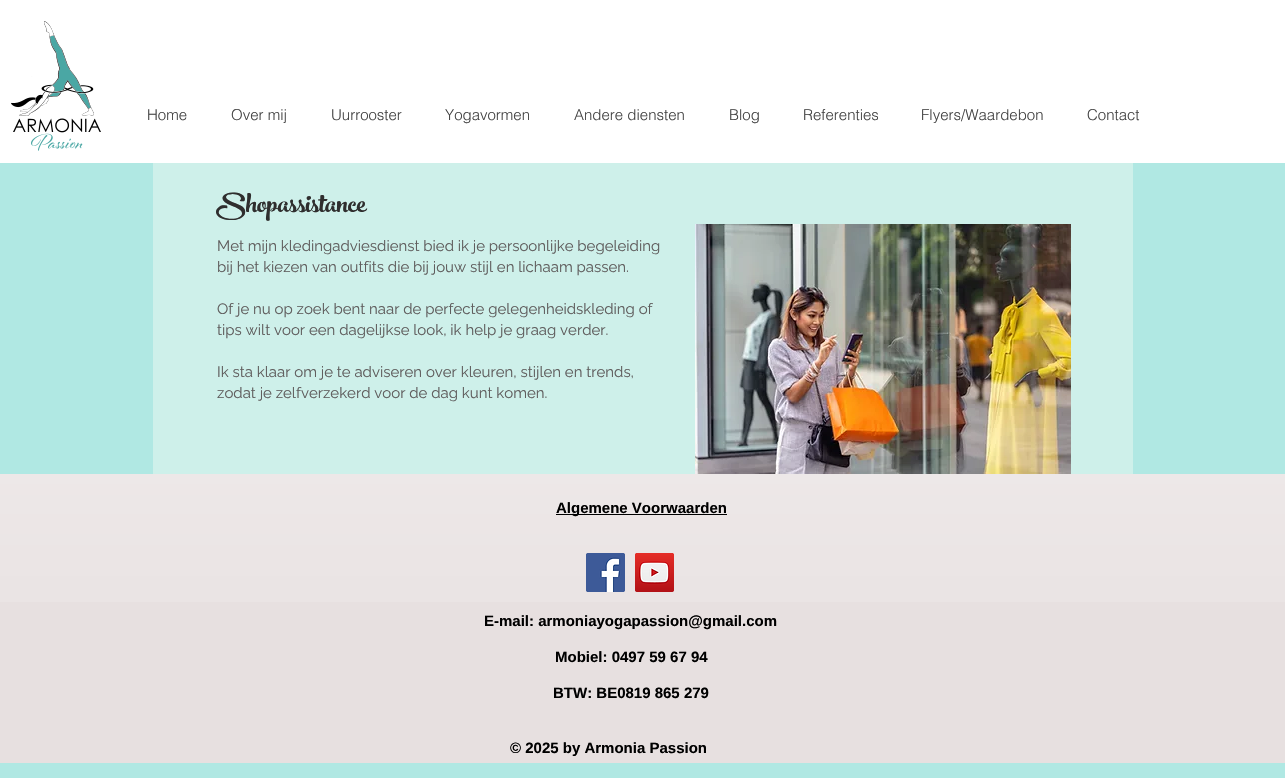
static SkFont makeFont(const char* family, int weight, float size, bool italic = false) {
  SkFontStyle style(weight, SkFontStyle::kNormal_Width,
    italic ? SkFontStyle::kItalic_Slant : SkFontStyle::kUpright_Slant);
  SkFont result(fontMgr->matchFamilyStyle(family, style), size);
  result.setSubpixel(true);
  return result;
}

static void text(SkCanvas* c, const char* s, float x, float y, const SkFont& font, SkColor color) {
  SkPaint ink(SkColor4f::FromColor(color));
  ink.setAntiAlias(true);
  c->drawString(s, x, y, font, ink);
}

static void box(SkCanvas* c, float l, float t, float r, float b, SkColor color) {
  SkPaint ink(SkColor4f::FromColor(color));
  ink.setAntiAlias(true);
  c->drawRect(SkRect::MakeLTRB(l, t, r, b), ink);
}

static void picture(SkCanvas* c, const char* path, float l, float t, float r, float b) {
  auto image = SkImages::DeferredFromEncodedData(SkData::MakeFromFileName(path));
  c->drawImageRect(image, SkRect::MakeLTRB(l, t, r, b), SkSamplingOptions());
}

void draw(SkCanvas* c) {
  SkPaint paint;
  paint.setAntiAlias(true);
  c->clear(0xffb0e8e3);
  box(c, 0, 0, 1285, 163, 0xffffffff);
  picture(c, "img_01.png", 11, 21, 101, 151);
  SkFont face1 = makeFont("helvetica", 300, 15);
  text(c, "Home", 147, 120, face1, 0xff444444);
  text(c, "Over mij", 231, 120, face1, 0xff444444);
  text(c, "Uurrooster", 331, 120, face1, 0xff444444);
  text(c, "Yogavormen", 445, 120, face1, 0xff444444);
  text(c, "Andere diensten", 574, 120, face1, 0xff444444);
  text(c, "Blog", 729, 120, face1, 0xff444444);
  text(c, "Referenties", 803, 120, face1, 0xff444444);
  text(c, "Flyers/Waardebon", 921, 120, face1, 0xff444444);
  text(c, "Contact", 1087, 120, face1, 0xff444444);
  box(c, 153, 163, 1133, 474, 0xffcef0ea);
  SkFont face2 = makeFont("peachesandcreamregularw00", 400, 40);
  text(c, "Shopassistance", 216, 212, face2, 0xff2f2e2e);
  SkFont face3 = makeFont("Raleway", 400, 15);
  text(c, "Met mijn kledingadviesdienst bied ik je persoonlijke begeleiding", 217, 251, face3, 0xff605e5e);
  text(c, "bij het kiezen van outfits die bij jouw stijl en lichaam passen.", 217, 272, face3, 0xff605e5e);
  text(c, "Of je nu op zoek bent naar de perfecte gelegenheidskleding of", 217, 314, face3, 0xff605e5e);
  text(c, "tips wilt voor een dagelijkse look, ik help je graag verder.", 217, 335, face3, 0xff605e5e);
  text(c, "Ik sta klaar om je te adviseren over kleuren, stijlen en trends,", 217, 377, face3, 0xff605e5e);
  text(c, "zodat je zelfverzekerd voor de dag kunt komen.", 217, 398, face3, 0xff605e5e);
  picture(c, "img_02.png", 695, 224, 1071, 474);
  box(c, 0, 474, 1285, 763, 0xffe7e0e0);
  picture(c, "img_03.png", 0, 474, 1285, 602);
  box(c, 556, 514, 727, 515, 0xff000000);
  SkFont face4 = makeFont("Liberation Sans", 700, 15);
  text(c, "Algemene Voorwaarden", 556, 513, face4, 0xff000000);
  picture(c, "img_04.png", 586, 553, 625, 592);
  picture(c, "img_05.png", 635, 553, 674, 592);
  text(c, "E-mail: armoniayogapassion@gmail.com", 484, 626, face4, 0xff000000);
  text(c, "Mobiel: 0497 59 67 94", 555, 662, face4, 0xff000000);
  text(c, "BTW: BE0819 865 279", 553, 698, face4, 0xff000000);
  text(c, "© 2025 by Armonia Passion", 510, 753, face4, 0xff000000);
}
